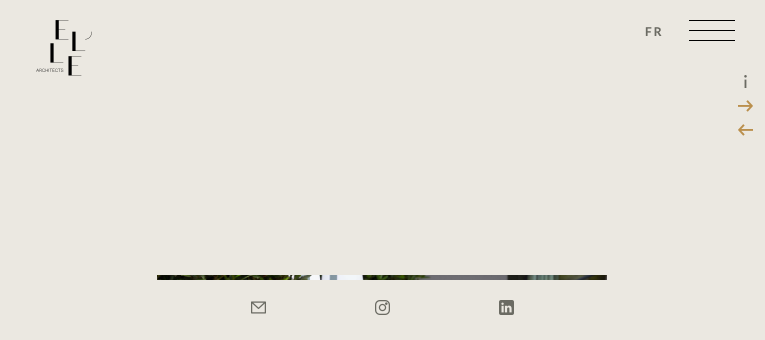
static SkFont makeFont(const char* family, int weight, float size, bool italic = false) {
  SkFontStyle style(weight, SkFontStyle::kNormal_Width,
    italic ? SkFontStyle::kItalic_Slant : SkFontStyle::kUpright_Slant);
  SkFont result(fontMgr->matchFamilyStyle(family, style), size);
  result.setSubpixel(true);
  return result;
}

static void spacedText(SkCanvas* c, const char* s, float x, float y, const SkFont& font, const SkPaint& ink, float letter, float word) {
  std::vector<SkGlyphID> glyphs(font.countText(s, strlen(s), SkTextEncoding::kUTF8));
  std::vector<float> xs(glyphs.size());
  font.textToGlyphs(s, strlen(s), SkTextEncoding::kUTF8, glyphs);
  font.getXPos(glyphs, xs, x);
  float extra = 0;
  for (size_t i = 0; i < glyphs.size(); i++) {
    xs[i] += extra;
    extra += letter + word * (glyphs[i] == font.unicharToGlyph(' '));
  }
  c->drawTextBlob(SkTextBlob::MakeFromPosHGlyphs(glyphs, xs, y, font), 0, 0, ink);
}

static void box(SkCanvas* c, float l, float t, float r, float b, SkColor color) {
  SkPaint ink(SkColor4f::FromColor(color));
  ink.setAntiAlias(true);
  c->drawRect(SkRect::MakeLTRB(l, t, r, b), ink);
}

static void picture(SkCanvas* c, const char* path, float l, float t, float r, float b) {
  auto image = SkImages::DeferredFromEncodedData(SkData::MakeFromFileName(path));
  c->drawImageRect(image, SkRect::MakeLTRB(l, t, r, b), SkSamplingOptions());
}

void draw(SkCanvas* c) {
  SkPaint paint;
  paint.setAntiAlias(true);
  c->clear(0xffebe8e1);
  picture(c, "img_01.png", 36, 20, 92, 76);
  SkFont face1 = makeFont("Lato", 700, 12);
  paint.setColor(0xff6b6b63);
  spacedText(c, "FR", 645, 36, face1, paint, 2, 0);
  box(c, 689, 20, 735, 21, 0xff000000);
  box(c, 689, 30, 735, 31, 0xff000000);
  box(c, 689, 40, 735, 41, 0xff000000);
  picture(c, "img_02.png", 744, 75, 747, 88);
  picture(c, "img_03.png", 738, 100, 753, 112);
  picture(c, "img_04.png", 738, 124, 753, 136);
  picture(c, "img_05.png", 157, 275, 607, 280);
  picture(c, "img_06.png", 251, 301, 266, 314);
  picture(c, "img_07.png", 375, 300, 390, 315);
  picture(c, "img_08.png", 499, 300, 514, 315);
}
